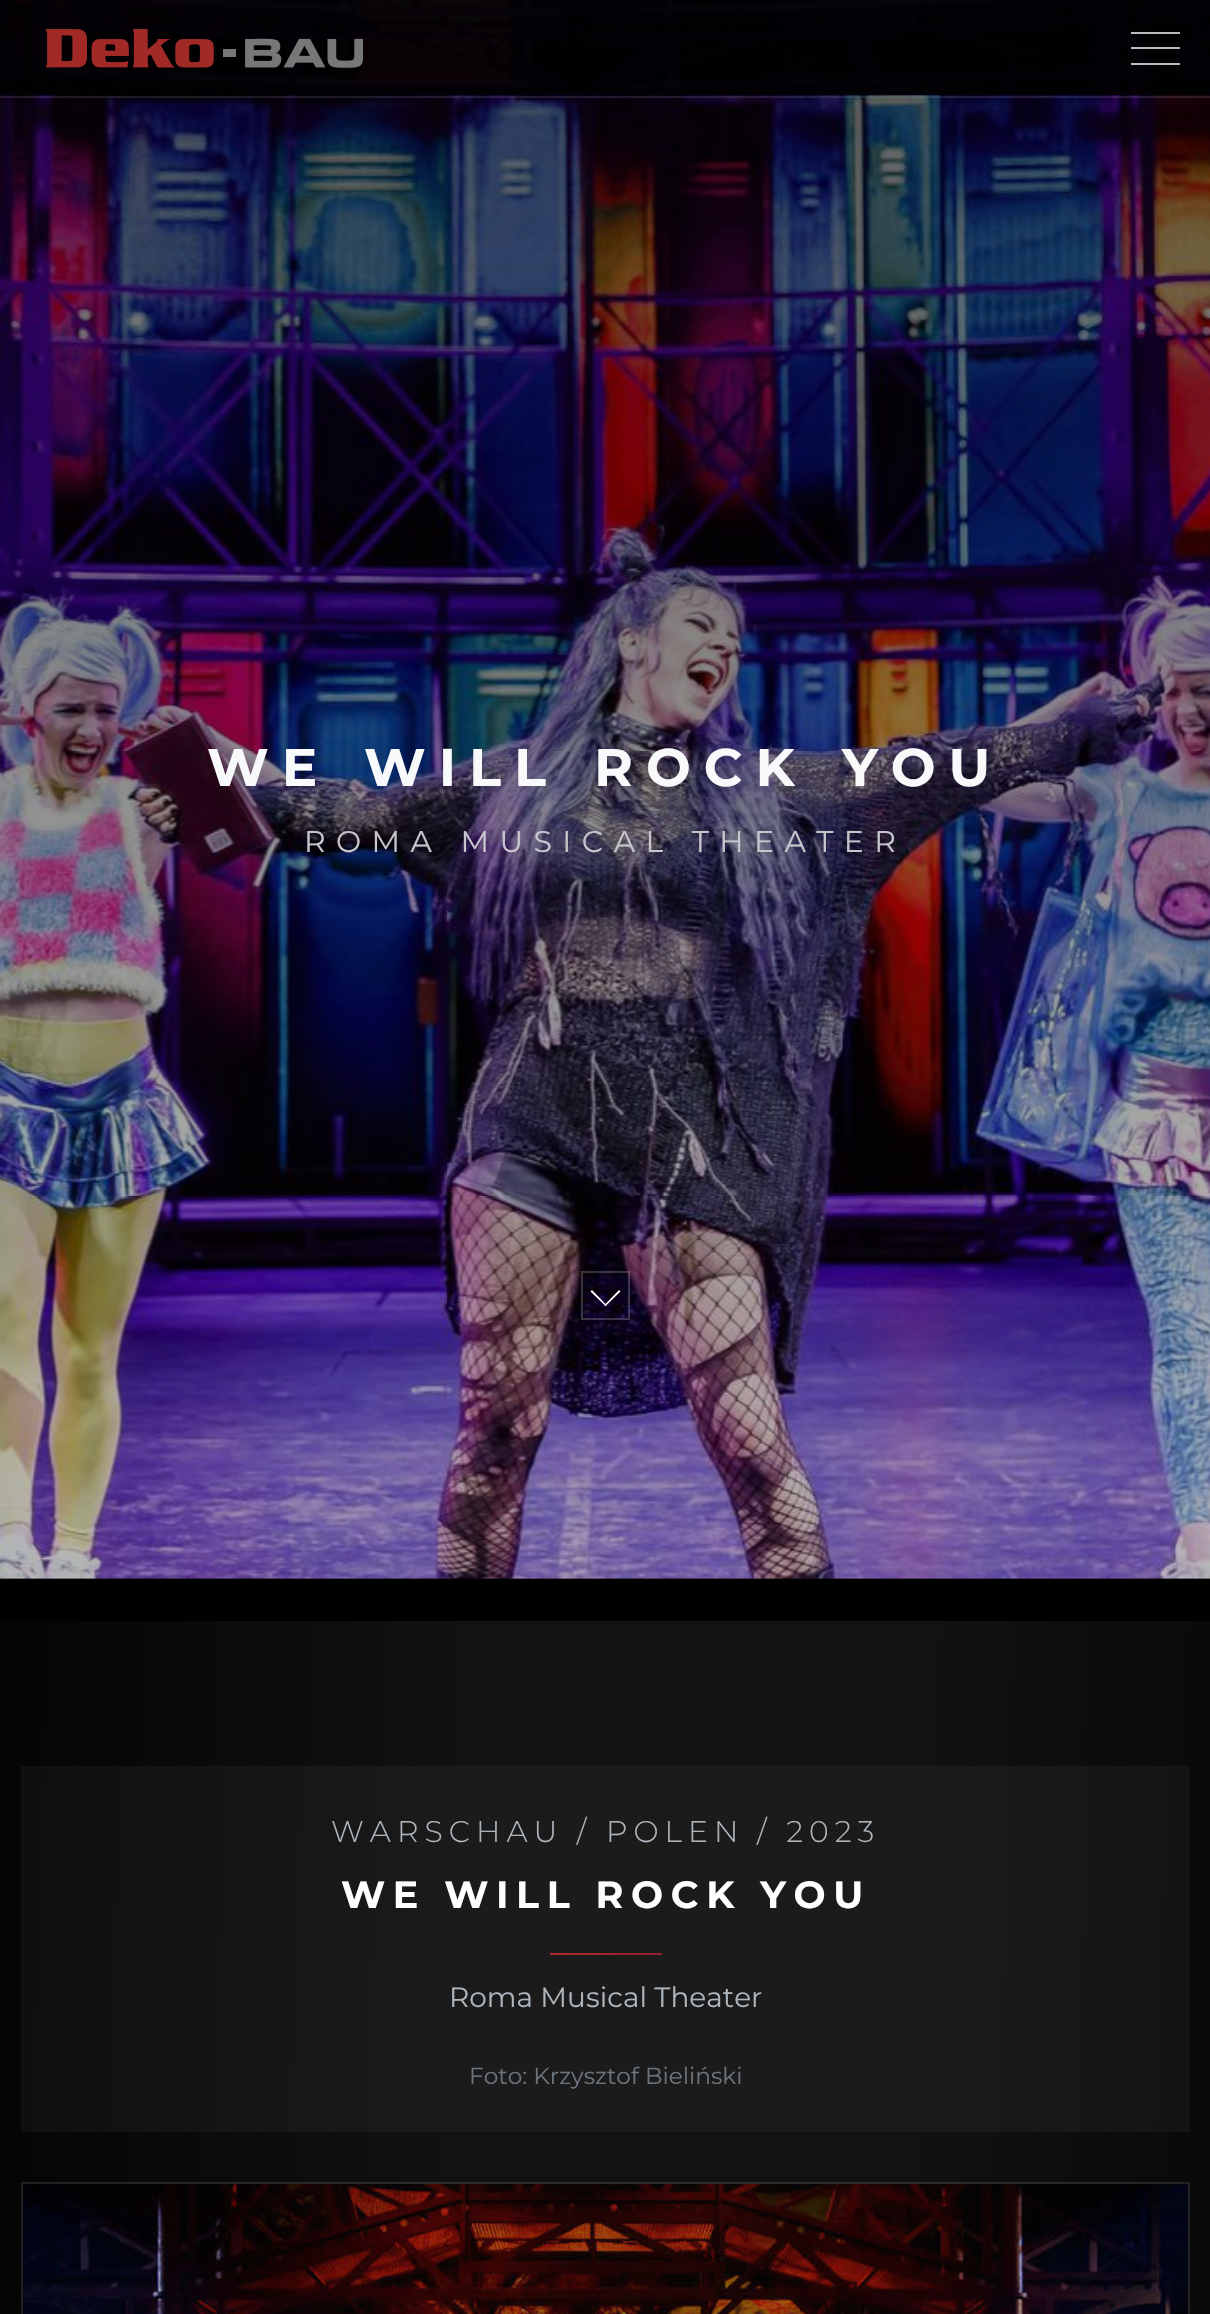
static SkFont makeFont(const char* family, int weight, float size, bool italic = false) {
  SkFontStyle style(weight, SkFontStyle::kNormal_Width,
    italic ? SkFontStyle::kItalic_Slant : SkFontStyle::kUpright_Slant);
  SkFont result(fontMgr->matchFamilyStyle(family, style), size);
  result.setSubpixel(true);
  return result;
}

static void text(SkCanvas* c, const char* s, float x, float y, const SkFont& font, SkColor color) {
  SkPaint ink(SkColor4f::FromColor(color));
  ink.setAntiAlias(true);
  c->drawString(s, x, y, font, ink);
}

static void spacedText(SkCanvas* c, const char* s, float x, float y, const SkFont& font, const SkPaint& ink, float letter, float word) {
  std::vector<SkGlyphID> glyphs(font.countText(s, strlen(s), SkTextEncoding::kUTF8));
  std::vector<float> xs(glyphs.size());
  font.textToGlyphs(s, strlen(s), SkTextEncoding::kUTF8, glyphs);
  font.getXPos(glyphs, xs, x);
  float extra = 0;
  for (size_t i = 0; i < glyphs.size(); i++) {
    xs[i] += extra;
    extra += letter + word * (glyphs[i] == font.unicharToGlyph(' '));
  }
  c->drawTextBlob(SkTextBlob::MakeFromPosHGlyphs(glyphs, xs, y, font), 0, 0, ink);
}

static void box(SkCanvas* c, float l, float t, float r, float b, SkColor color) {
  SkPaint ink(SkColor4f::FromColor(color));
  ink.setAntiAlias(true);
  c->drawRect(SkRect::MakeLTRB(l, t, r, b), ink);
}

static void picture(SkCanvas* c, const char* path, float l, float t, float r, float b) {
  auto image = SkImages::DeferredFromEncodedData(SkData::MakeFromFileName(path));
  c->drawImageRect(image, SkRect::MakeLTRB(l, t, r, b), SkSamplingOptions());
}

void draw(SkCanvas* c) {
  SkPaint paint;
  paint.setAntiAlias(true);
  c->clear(0xffffffff);
  box(c, 0, 1578, 1210, 1621, 0xff000000);
  picture(c, "img_02.png", 0, 0, 1210, 1579);
  {
    const SkColor colors[] = {0x26000000, 0x8c000000};
    const float stops[] = {0.2f, 1};
    const SkPoint ends[] = {{606, 1750}, {606, 0}};
    paint.setShader(SkGradientShader::MakeLinear(ends, colors, stops, 2, SkTileMode::kClamp));
    paint.setAlpha(255);
  }
  c->drawRect(SkRect::MakeLTRB(0, 0, 1210, 1579), paint);
  box(c, 0, 96, 1210, 98, 0x1affffff);
  box(c, 0, 0, 1210, 95, 0xe6000000);
  picture(c, "img_01.png", 46, 29, 363, 68);
  box(c, 1131, 32, 1180, 34, 0xbff8f9fa);
  box(c, 1131, 47, 1180, 49, 0xbff8f9fa);
  box(c, 1131, 63, 1180, 65, 0xbff8f9fa);
  {
    const SkColor colors[] = {0xff030303, 0xff121212, 0xff121212, 0xff030303};
    const float stops[] = {0.01f, 0.35f, 0.65f, 1};
    const SkPoint ends[] = {{-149, 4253}, {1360, 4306}};
    paint.setShader(SkGradientShader::MakeLinear(ends, colors, stops, 4, SkTileMode::kClamp));
    paint.setAlpha(255);
  }
  c->drawRect(SkRect::MakeLTRB(0, 1621, 1210, 2314), paint);
  {
    const SkColor colors[] = {0xff0d0d0d, 0xff1b1b1b, 0xff1b1b1b, 0xff0d0d0d};
    const float stops[] = {0.01f, 0.35f, 0.65f, 1};
    const SkPoint ends[] = {{-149, 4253}, {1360, 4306}};
    paint.setShader(SkGradientShader::MakeLinear(ends, colors, stops, 4, SkTileMode::kClamp));
    paint.setAlpha(255);
  }
  c->drawRect(SkRect::MakeLTRB(21, 1766, 1190, 2132), paint);
  SkFont face1 = makeFont("Montserrat", 700, 53);
  paint.setShader(nullptr);
  paint.setColor(0xfff8f9fa);
  spacedText(c, "WE", 207, 786, face1, paint, 13, 0);
  spacedText(c, "WILL", 364, 786, face1, paint, 13, 0);
  spacedText(c, "ROCK", 594, 786, face1, paint, 13, 0);
  spacedText(c, "YOU", 842, 786, face1, paint, 13, 0);
  SkFont face2 = makeFont("Montserrat", 400, 29.9f);
  paint.setColor(0xffc7c6cd);
  spacedText(c, "ROMA MUSICAL THEATER", 304, 852, face2, paint, 10.4f, 0);
  paint.setStyle(SkPaint::kStroke_Style);
  paint.setStrokeWidth(2);
  paint.setColor(0x33ffffff);
  c->drawRect(SkRect::MakeLTRB(582, 1272, 629, 1319), paint);
  paint.setStyle(SkPaint::kFill_Style);
  paint.setColor(0xffffffff);
  c->drawPath(SkPathBuilder().moveTo(620.5f, 1291.5f).lineTo(605.5f, 1306).lineTo(604.5f, 1305).lineTo(619, 1290).close().detach(), paint);
  c->drawPath(SkPathBuilder().moveTo(606.5f, 1305).lineTo(605.5f, 1306).lineTo(590.5f, 1291.5f).lineTo(592, 1290).close().detach(), paint);
  SkFont face3 = makeFont("Montserrat", 300, 29.9f);
  paint.setColor(0xffadb5bd);
  spacedText(c, "WARSCHAU / POLEN", 331, 1842, face3, paint, 6, 0);
  spacedText(c, "/ 2023", 757, 1842, face3, paint, 6, 0);
  SkFont face4 = makeFont("Montserrat", 700, 38);
  paint.setColor(0xffffffff);
  spacedText(c, "WE WILL ROCK YOU", 341, 1908, face4, paint, 7.6f, 0);
  {
    const SkColor colors[] = {0xffb12933, 0xff8f2129};
    const float stops[] = {0, 1};
    const SkPoint ends[] = {{550, 1954}, {662, 1954}};
    paint.setShader(SkGradientShader::MakeLinear(ends, colors, stops, 2, SkTileMode::kClamp));
    paint.setAlpha(255);
  }
  c->drawRect(SkRect::MakeLTRB(550, 1953, 662, 1955), paint);
  SkFont face5 = makeFont("Montserrat", 400, 28);
  text(c, "Roma Musical Theater", 449, 2007, face5, 0xffadb5bd);
  SkFont face6 = makeFont("Montserrat", 400, 23.25f);
  text(c, "Foto: Krzysztof Bieliński", 469, 2084, face6, 0xff6c757d);
  paint.setStyle(SkPaint::kStroke_Style);
  paint.setShader(nullptr);
  paint.setColor(0x1affffff);
  c->drawRect(SkRect::MakeLTRB(22, 2183, 1189, 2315), paint);
  picture(c, "img_03.png", 23, 2184, 1188, 2314);
}
